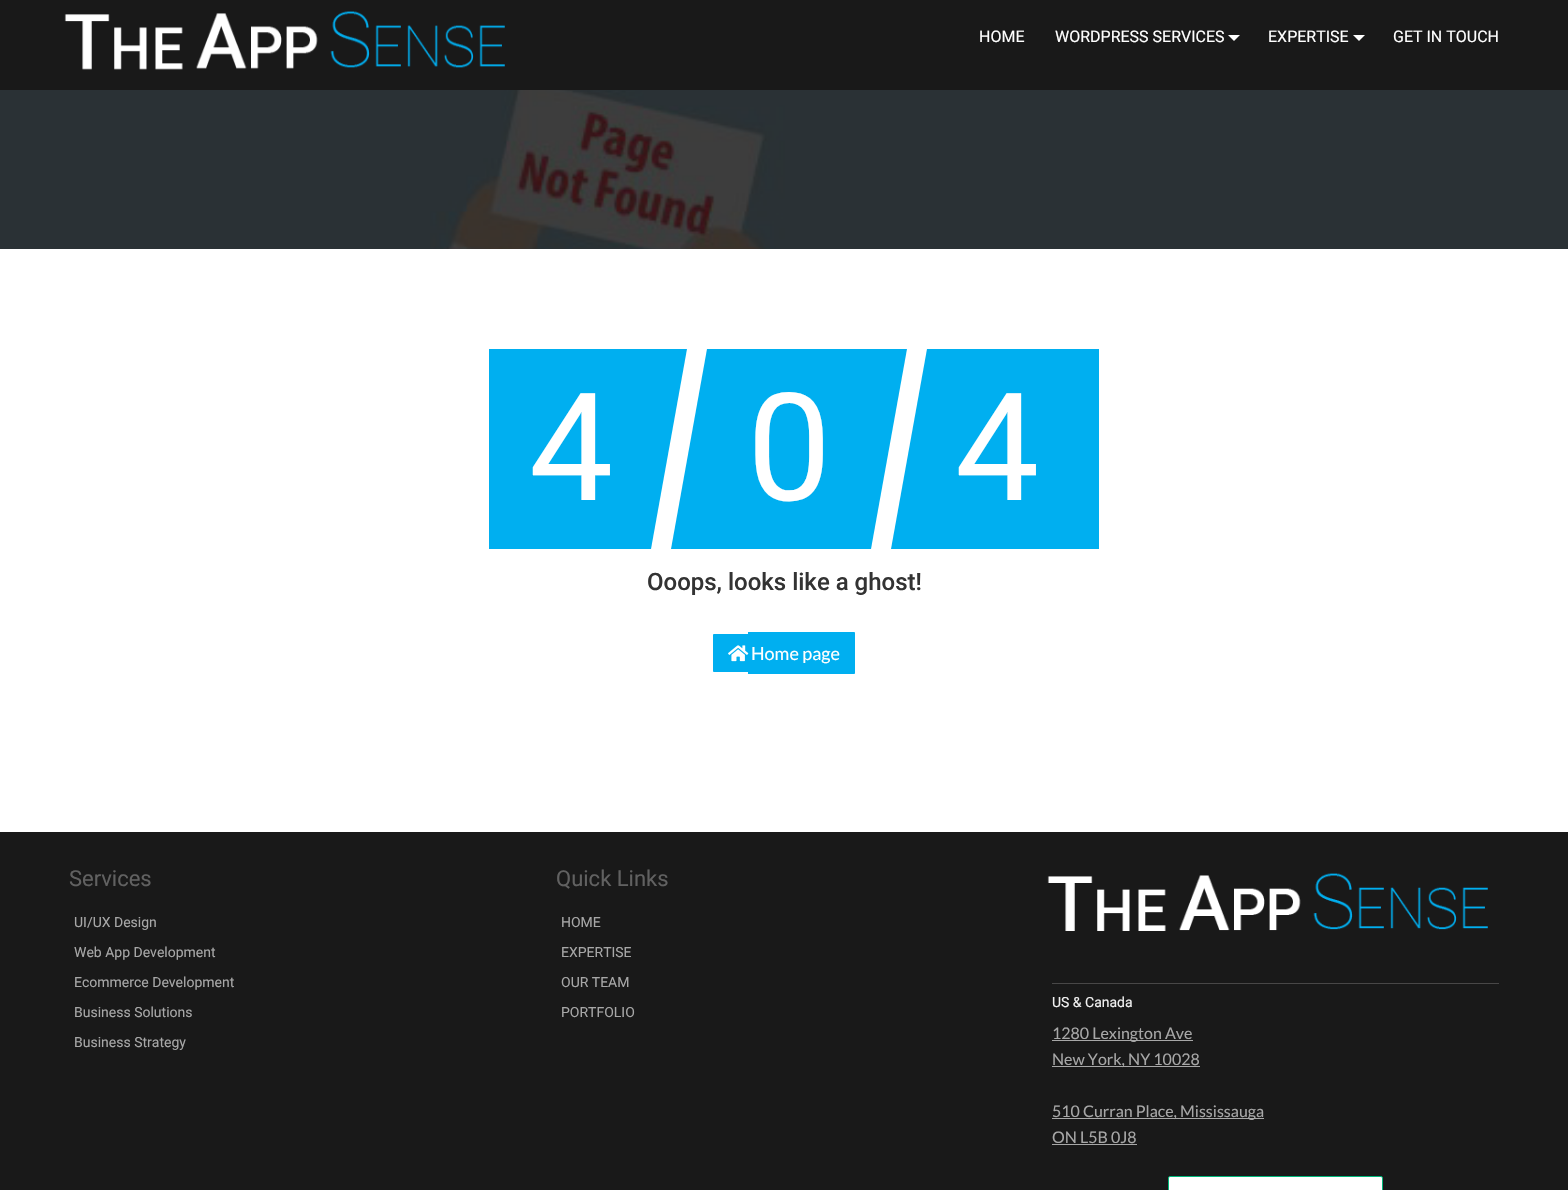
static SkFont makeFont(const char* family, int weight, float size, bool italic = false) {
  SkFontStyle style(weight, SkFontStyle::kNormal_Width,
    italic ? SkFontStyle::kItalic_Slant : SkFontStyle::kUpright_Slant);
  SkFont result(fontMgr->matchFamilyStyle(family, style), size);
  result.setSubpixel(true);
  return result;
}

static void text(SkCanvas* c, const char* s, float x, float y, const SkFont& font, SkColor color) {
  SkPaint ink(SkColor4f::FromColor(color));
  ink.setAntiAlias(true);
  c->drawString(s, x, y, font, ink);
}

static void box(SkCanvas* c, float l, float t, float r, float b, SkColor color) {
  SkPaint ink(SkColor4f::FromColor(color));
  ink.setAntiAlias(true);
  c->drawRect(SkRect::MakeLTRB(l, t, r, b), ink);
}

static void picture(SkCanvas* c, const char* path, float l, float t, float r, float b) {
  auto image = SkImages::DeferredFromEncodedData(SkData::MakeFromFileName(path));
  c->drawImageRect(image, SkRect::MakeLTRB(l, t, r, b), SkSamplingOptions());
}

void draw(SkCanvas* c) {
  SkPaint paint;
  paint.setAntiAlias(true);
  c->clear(0xffffffff);
  box(c, 0, 0, 1568, 90, 0xff191919);
  picture(c, "img_01.png", 64, 11, 505, 70);
  SkFont face1 = makeFont("Roboto", 400, 16);
  text(c, "HOME", 979, 42, face1, 0xffffffff);
  text(c, "WORDPRESS SERVICES", 1055, 42, face1, 0xffffffff);
  paint.setColor(0xffffffff);
  c->drawPath(SkPathBuilder().moveTo(1228, 35).lineTo(1240, 35).lineTo(1234, 41).close().detach(), paint);
  text(c, "EXPERTISE", 1268, 42, face1, 0xffffffff);
  c->drawPath(SkPathBuilder().moveTo(1353, 35).lineTo(1365, 35).lineTo(1359, 41).close().detach(), paint);
  text(c, "GET IN TOUCH", 1393, 42, face1, 0xffffffff);
  picture(c, "img_02.png", 0, 90, 1568, 249);
  box(c, 489, 349, 687, 549, 0xff00aff0);
  SkFont face2 = makeFont("Roboto", 400, 150);
  text(c, "4", 529, 500, face2, 0xffffffff);
  c->save();
  c->clipRect(SkRect::MakeLTRB(489, 349, 689, 549));
  c->drawPath(SkPathBuilder().moveTo(687, 349).lineTo(887, 349).lineTo(851, 549).lineTo(651, 549).close().detach(), paint);
  c->restore();
  paint.setColor(0xff00aff0);
  c->drawPath(SkPathBuilder().moveTo(707, 349).lineTo(907, 349).lineTo(871, 549).lineTo(671, 549).close().detach(), paint);
  text(c, "0", 747, 500, face2, 0xffffffff);
  c->drawPath(SkPathBuilder().moveTo(927, 349).lineTo(1097, 349).lineTo(1061, 549).lineTo(891, 549).close().detach(), paint);
  text(c, "4", 955, 500, face2, 0xffffffff);
  box(c, 1061, 349, 1099, 549, 0xff00aff0);
  SkFont face3 = makeFont("Roboto", 500, 24);
  text(c, "Ooops, looks like a ghost!", 647, 590, face3, 0xff333333);
  c->drawPath(SkPathBuilder().moveTo(714, 634).lineTo(748, 634).lineTo(748, 672).lineTo(714, 672).cubicTo(713.5f, 672, 713, 671.5f, 713, 671).lineTo(713, 635).cubicTo(713, 634.5f, 713.5f, 634, 714, 634).close().detach(), paint);
  c->drawPath(SkPathBuilder().moveTo(748, 632).lineTo(854, 632).cubicTo(854.5f, 632, 855, 632.5f, 855, 633).lineTo(855, 673).cubicTo(855, 673.5f, 854.5f, 674, 854, 674).lineTo(748, 674).close().detach(), paint);
  picture(c, "img_03.png", 728, 645, 749, 662);
  SkFont face4 = makeFont("Lato", 400, 18);
  text(c, "Home page", 751, 660, face4, 0xffffffff);
  box(c, 0, 832, 1568, 1190, 0xff191919);
  SkFont face5 = makeFont("Roboto", 400, 22);
  text(c, "Services", 69, 886, face5, 0xff616161);
  SkFont face6 = makeFont("Roboto", 400, 14);
  text(c, "UI/UX Design", 74, 927, face6, 0xffa7a7a7);
  text(c, "Web App Development", 74, 957, face6, 0xffa7a7a7);
  text(c, "Ecommerce Development", 74, 987, face6, 0xffa7a7a7);
  text(c, "Business Solutions", 74, 1017, face6, 0xffa7a7a7);
  text(c, "Business Strategy", 74, 1047, face6, 0xffa7a7a7);
  text(c, "Quick Links", 556, 886, face5, 0xff616161);
  text(c, "HOME", 561, 927, face6, 0xffa7a7a7);
  text(c, "EXPERTISE", 561, 957, face6, 0xffa7a7a7);
  text(c, "OUR TEAM", 561, 987, face6, 0xffa7a7a7);
  text(c, "PORTFOLIO", 561, 1017, face6, 0xffa7a7a7);
  picture(c, "img_04.png", 1047, 873, 1488, 931);
  box(c, 1052, 983, 1499, 984, 0xff484747);
  text(c, "US & Canada", 1052, 1007, face6, 0xfff1f1f1);
  box(c, 1052, 1040, 1193, 1041, 0xffa7a7a7);
  SkFont face7 = makeFont("Lato", 400, 16);
  text(c, "1280 Lexington Ave", 1052, 1039, face7, 0xffa7a7a7);
  box(c, 1052, 1066, 1200, 1067, 0xffa7a7a7);
  text(c, "New York, NY 10028", 1052, 1065, face7, 0xffa7a7a7);
  box(c, 1052, 1118, 1264, 1119, 0xffa7a7a7);
  text(c, "510 Curran Place, Mississauga", 1052, 1117, face7, 0xffa7a7a7);
  text(c, "ON L5B 0J8", 1052, 1143, face7, 0xffa7a7a7);
  box(c, 1052, 1144, 1137, 1145, 0xffa7a7a7);
  picture(c, "img_05.png", 1168, 1176, 1383, 1190);
}
